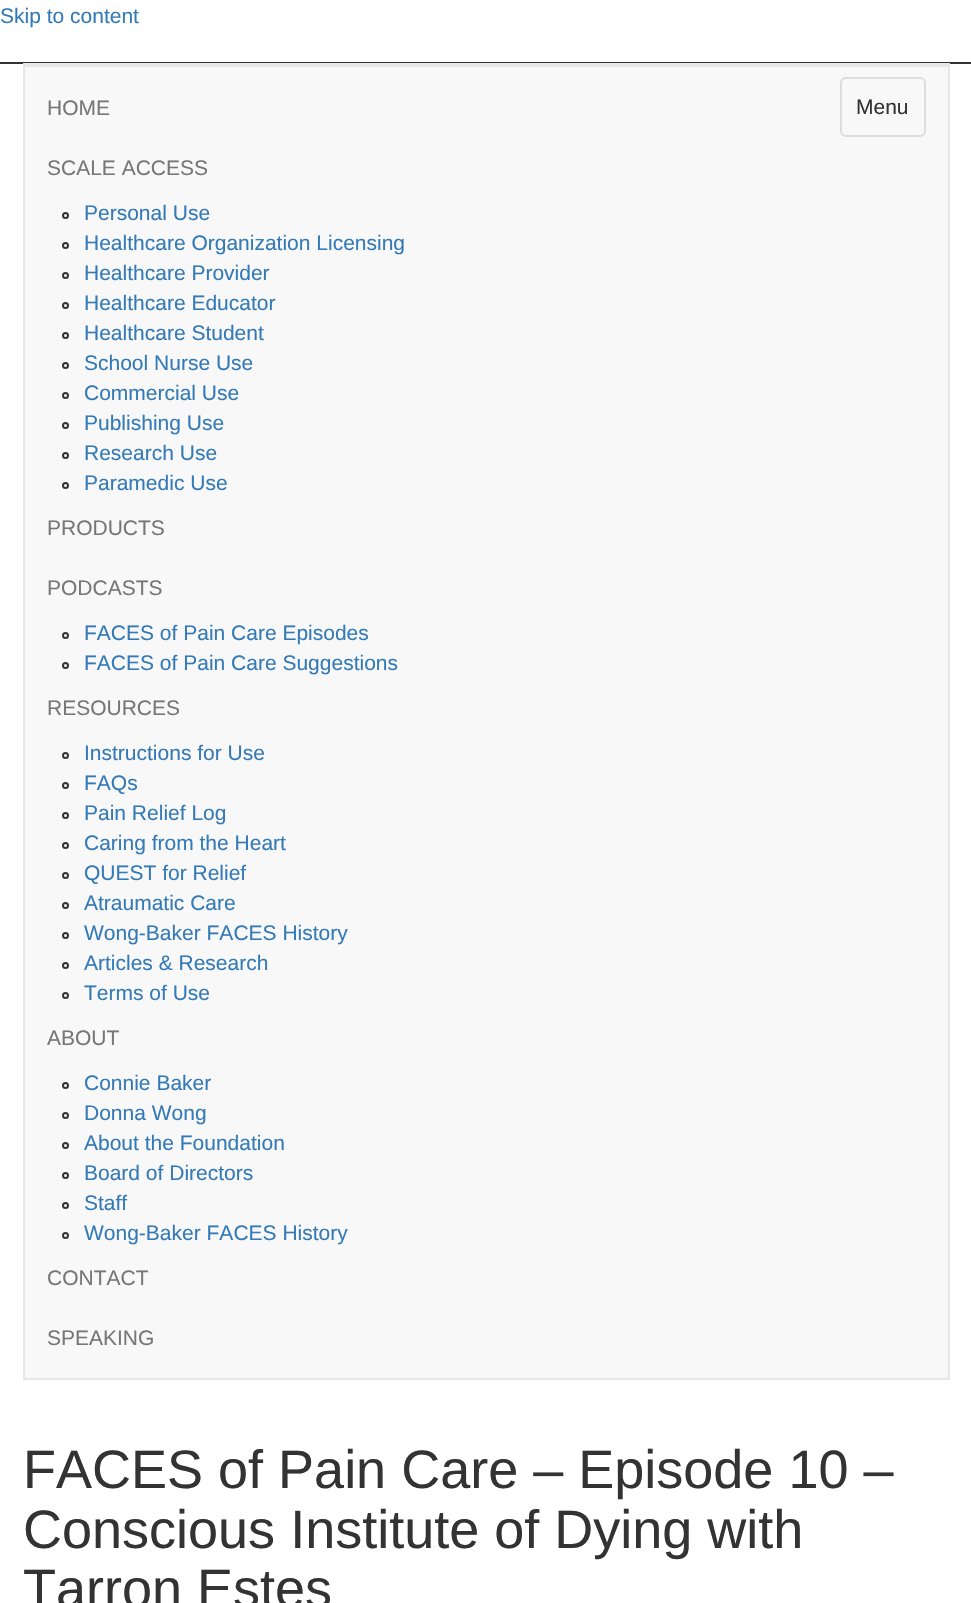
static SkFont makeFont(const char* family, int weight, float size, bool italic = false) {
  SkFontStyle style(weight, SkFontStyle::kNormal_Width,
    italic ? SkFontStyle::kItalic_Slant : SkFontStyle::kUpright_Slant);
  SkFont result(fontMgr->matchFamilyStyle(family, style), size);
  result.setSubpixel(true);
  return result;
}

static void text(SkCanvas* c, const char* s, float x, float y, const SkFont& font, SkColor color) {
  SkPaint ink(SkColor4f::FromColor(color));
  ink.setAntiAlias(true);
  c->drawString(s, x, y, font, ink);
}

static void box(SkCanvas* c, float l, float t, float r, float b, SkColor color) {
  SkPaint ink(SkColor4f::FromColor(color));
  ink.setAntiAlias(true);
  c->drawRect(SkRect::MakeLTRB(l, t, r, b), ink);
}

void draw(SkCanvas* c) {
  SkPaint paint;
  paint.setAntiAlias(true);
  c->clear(0xffffffff);
  SkFont face1 = makeFont("Liberation Sans", 400, 21);
  text(c, "Skip to content", 0, 23, face1, 0xff337ab7);
  box(c, 0, 62, 971, 64, 0xff333333);
  box(c, 25, 67, 948, 1378, 0xfff8f8f8);
  paint.setStyle(SkPaint::kStroke_Style);
  paint.setStrokeWidth(2);
  paint.setColor(0xffe7e7e7);
  c->drawRect(SkRect::MakeLTRB(24, 64, 949, 1379), paint);
  box(c, 24, 65, 948, 67, 0xffe7e7e7);
  text(c, "HOME", 47, 115, face1, 0xff777777);
  text(c, "SCALE ACCESS", 47, 175, face1, 0xff777777);
  paint.setColor(0xff333333);
  c->drawCircle(65.5f, 215.5f, 2.5f, paint);
  text(c, "Personal Use", 84, 220, face1, 0xff337ab7);
  c->drawCircle(65.5f, 245.5f, 2.5f, paint);
  text(c, "Healthcare Organization Licensing", 84, 250, face1, 0xff337ab7);
  c->drawCircle(65.5f, 275.5f, 2.5f, paint);
  text(c, "Healthcare Provider", 84, 280, face1, 0xff337ab7);
  c->drawCircle(65.5f, 305.5f, 2.5f, paint);
  text(c, "Healthcare Educator", 84, 310, face1, 0xff337ab7);
  c->drawCircle(65.5f, 335.5f, 2.5f, paint);
  text(c, "Healthcare Student", 84, 340, face1, 0xff337ab7);
  c->drawCircle(65.5f, 365.5f, 2.5f, paint);
  text(c, "School Nurse Use", 84, 370, face1, 0xff337ab7);
  c->drawCircle(65.5f, 395.5f, 2.5f, paint);
  text(c, "Commercial Use", 84, 400, face1, 0xff337ab7);
  c->drawCircle(65.5f, 425.5f, 2.5f, paint);
  text(c, "Publishing Use", 84, 430, face1, 0xff337ab7);
  c->drawCircle(65.5f, 455.5f, 2.5f, paint);
  text(c, "Research Use", 84, 460, face1, 0xff337ab7);
  c->drawCircle(65.5f, 485.5f, 2.5f, paint);
  text(c, "Paramedic Use", 84, 490, face1, 0xff337ab7);
  text(c, "PRODUCTS", 47, 535, face1, 0xff777777);
  text(c, "PODCASTS", 47, 595, face1, 0xff777777);
  c->drawCircle(65.5f, 635.5f, 2.5f, paint);
  text(c, "FACES of Pain Care Episodes", 84, 640, face1, 0xff337ab7);
  c->drawCircle(65.5f, 665.5f, 2.5f, paint);
  text(c, "FACES of Pain Care Suggestions", 84, 670, face1, 0xff337ab7);
  text(c, "RESOURCES", 47, 715, face1, 0xff777777);
  c->drawCircle(65.5f, 755.5f, 2.5f, paint);
  text(c, "Instructions for Use", 84, 760, face1, 0xff337ab7);
  c->drawCircle(65.5f, 785.5f, 2.5f, paint);
  text(c, "FAQs", 84, 790, face1, 0xff337ab7);
  c->drawCircle(65.5f, 815.5f, 2.5f, paint);
  text(c, "Pain Relief Log", 84, 820, face1, 0xff337ab7);
  c->drawCircle(65.5f, 845.5f, 2.5f, paint);
  text(c, "Caring from the Heart", 84, 850, face1, 0xff337ab7);
  c->drawCircle(65.5f, 875.5f, 2.5f, paint);
  text(c, "QUEST for Relief", 84, 880, face1, 0xff337ab7);
  c->drawCircle(65.5f, 905.5f, 2.5f, paint);
  text(c, "Atraumatic Care", 84, 910, face1, 0xff337ab7);
  c->drawCircle(65.5f, 935.5f, 2.5f, paint);
  text(c, "Wong-Baker FACES History", 84, 940, face1, 0xff337ab7);
  c->drawCircle(65.5f, 965.5f, 2.5f, paint);
  text(c, "Articles & Research", 84, 970, face1, 0xff337ab7);
  c->drawCircle(65.5f, 995.5f, 2.5f, paint);
  text(c, "Terms of Use", 84, 1000, face1, 0xff337ab7);
  text(c, "ABOUT", 47, 1045, face1, 0xff777777);
  c->drawCircle(65.5f, 1085.5f, 2.5f, paint);
  text(c, "Connie Baker", 84, 1090, face1, 0xff337ab7);
  c->drawCircle(65.5f, 1115.5f, 2.5f, paint);
  text(c, "Donna Wong", 84, 1120, face1, 0xff337ab7);
  c->drawCircle(65.5f, 1145.5f, 2.5f, paint);
  text(c, "About the Foundation", 84, 1150, face1, 0xff337ab7);
  c->drawCircle(65.5f, 1175.5f, 2.5f, paint);
  text(c, "Board of Directors", 84, 1180, face1, 0xff337ab7);
  c->drawCircle(65.5f, 1205.5f, 2.5f, paint);
  text(c, "Staff", 84, 1210, face1, 0xff337ab7);
  c->drawCircle(65.5f, 1235.5f, 2.5f, paint);
  text(c, "Wong-Baker FACES History", 84, 1240, face1, 0xff337ab7);
  text(c, "CONTACT", 47, 1285, face1, 0xff777777);
  text(c, "SPEAKING", 47, 1345, face1, 0xff777777);
  paint.setColor(0xffdddddd);
  c->drawRoundRect(SkRect::MakeLTRB(841, 78, 925, 136), 5, 5, paint);
  text(c, "Menu", 856, 114, face1, 0xff333333);
  SkFont face2 = makeFont("Liberation Sans", 400, 54);
  text(c, "FACES of Pain Care – Episode 10 –", 23, 1488, face2, 0xff333333);
  text(c, "Conscious Institute of Dying with", 23, 1548, face2, 0xff333333);
  text(c, "Tarron Estes", 23, 1607, face2, 0xff333333);
}
